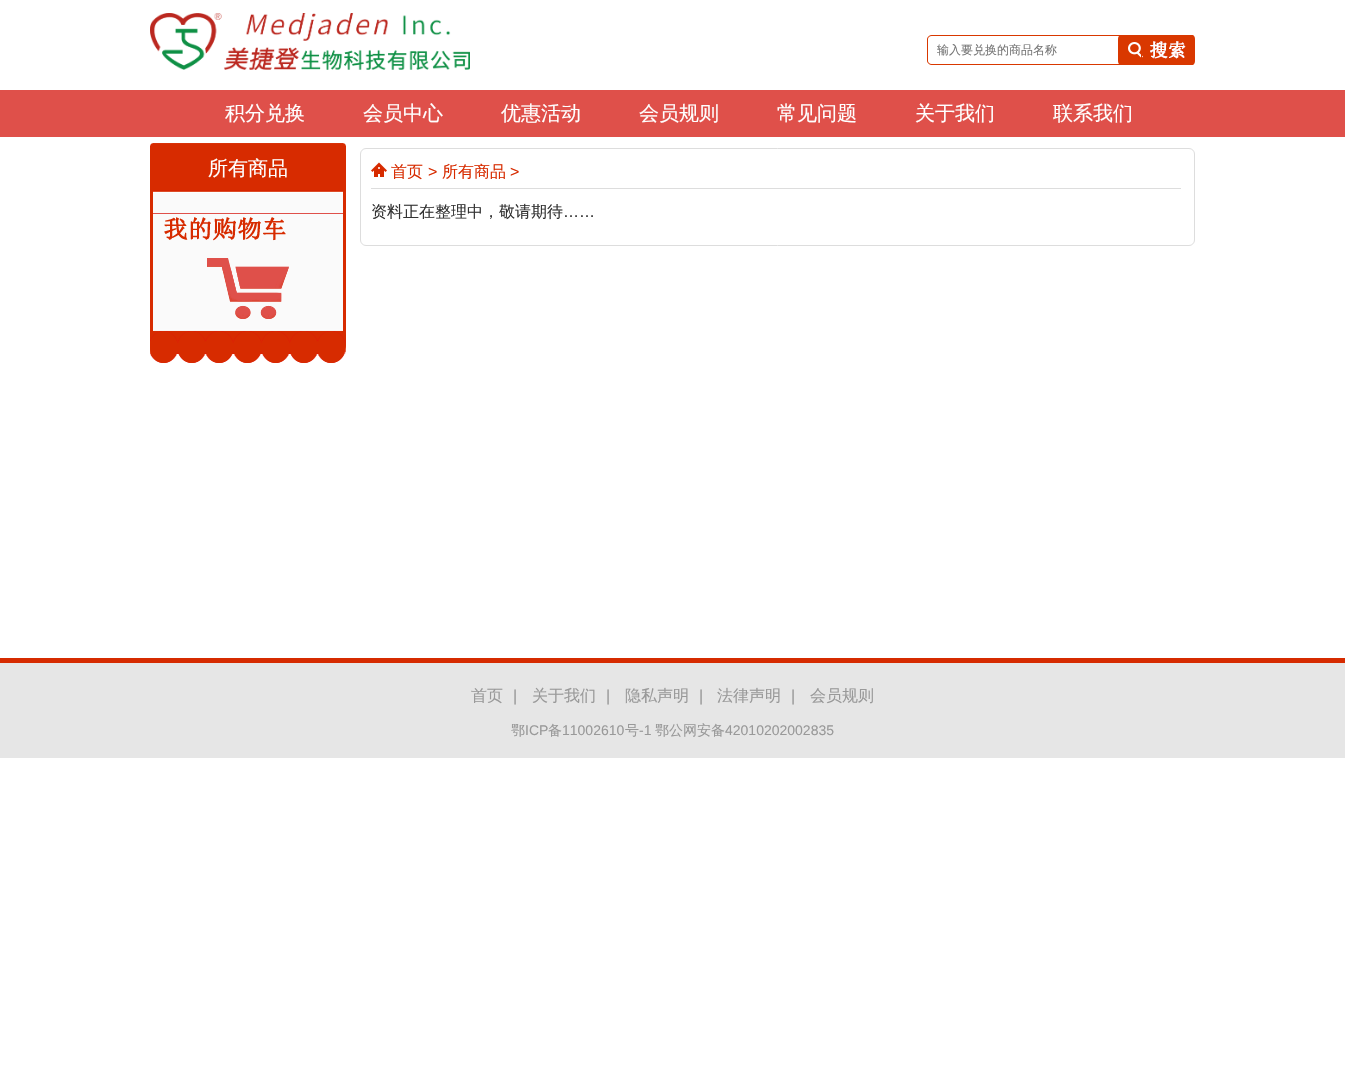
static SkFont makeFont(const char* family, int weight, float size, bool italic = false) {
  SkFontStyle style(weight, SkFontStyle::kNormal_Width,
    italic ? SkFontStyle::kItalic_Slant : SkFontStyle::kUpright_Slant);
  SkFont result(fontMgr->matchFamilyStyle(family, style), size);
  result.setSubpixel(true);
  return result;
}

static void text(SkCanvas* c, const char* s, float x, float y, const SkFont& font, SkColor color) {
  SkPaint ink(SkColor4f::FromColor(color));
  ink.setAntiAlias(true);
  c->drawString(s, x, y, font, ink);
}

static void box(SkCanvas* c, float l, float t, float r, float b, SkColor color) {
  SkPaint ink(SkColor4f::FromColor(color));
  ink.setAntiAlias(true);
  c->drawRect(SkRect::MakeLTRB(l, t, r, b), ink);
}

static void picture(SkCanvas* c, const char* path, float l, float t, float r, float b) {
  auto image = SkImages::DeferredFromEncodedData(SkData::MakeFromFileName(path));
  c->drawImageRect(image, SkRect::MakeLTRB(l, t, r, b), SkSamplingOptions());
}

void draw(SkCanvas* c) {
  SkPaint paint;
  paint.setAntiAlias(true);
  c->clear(0xffffffff);
  picture(c, "img_01.png", 150, 13, 470, 70);
  picture(c, "img_02.png", 927, 35, 1195, 65);
  SkFont face1 = makeFont("WenQuanYi Zen Hei", 500, 12);
  text(c, "输入要兑换的商品名称", 937, 54, face1, 0xff757575);
  box(c, 0, 90, 1345, 137, 0xffdf504a);
  SkFont face2 = makeFont("WenQuanYi Zen Hei", 500, 20);
  text(c, "积分兑换", 225, 120, face2, 0xffffffff);
  text(c, "会员中心", 363, 120, face2, 0xffffffff);
  text(c, "优惠活动", 501, 120, face2, 0xffffffff);
  text(c, "会员规则", 639, 120, face2, 0xffffffff);
  text(c, "常见问题", 777, 120, face2, 0xffffffff);
  text(c, "关于我们", 915, 120, face2, 0xffffffff);
  text(c, "联系我们", 1053, 120, face2, 0xffffffff);
  picture(c, "img_03.png", 150, 143, 346, 193);
  text(c, "所有商品", 208, 175, face2, 0xffffffff);
  picture(c, "img_04.png", 150, 193, 346, 329);
  picture(c, "img_05.png", 153, 213, 343, 319);
  picture(c, "img_06.png", 150, 329, 346, 363);
  paint.setStyle(SkPaint::kStroke_Style);
  paint.setStrokeWidth(1);
  paint.setColor(0xffdddddd);
  c->drawRoundRect(SkRect::MakeLTRB(360.5f, 148.5f, 1194.5f, 245.5f), 5.5f, 5.5f, paint);
  box(c, 371, 188, 1181, 189, 0xffdddddd);
  picture(c, "img_07.png", 371, 162, 387, 177);
  SkFont face3 = makeFont("WenQuanYi Zen Hei", 500, 16);
  text(c, "首页", 391, 177, face3, 0xffd72b00);
  SkFont face4 = makeFont("Liberation Sans", 400, 16);
  text(c, ">", 428, 177, face4, 0xffd72b00);
  text(c, "所有商品", 442, 177, face3, 0xffd72b00);
  text(c, ">", 510, 177, face4, 0xffd72b00);
  text(c, "资料正在整理中，敬请期待", 371, 217, face3, 0xff333333);
  text(c, "……", 563, 217, face4, 0xff333333);
  box(c, 0, 663, 1345, 758, 0xffe6e6e6);
  box(c, 0, 658, 1345, 663, 0xffd62b00);
  text(c, "首页", 471, 701, face3, 0xff999999);
  text(c, "|", 513, 701, face4, 0xff999999);
  text(c, "关于我们", 532, 701, face3, 0xff999999);
  text(c, "|", 606, 701, face4, 0xff999999);
  text(c, "隐私声明", 625, 701, face3, 0xff999999);
  text(c, "|", 699, 701, face4, 0xff999999);
  text(c, "法律声明", 717, 701, face3, 0xff999999);
  text(c, "|", 791, 701, face4, 0xff999999);
  text(c, "会员规则", 810, 701, face3, 0xff999999);
  SkFont face5 = makeFont("WenQuanYi Zen Hei", 500, 14);
  text(c, "鄂", 511, 735, face5, 0xff999999);
  SkFont face6 = makeFont("Liberation Sans", 400, 14);
  text(c, "ICP", 525, 735, face6, 0xff999999);
  text(c, "备", 548, 735, face5, 0xff999999);
  text(c, "11002610", 562, 735, face6, 0xff999999);
  text(c, "号", 625, 735, face5, 0xff999999);
  text(c, "-1", 639, 735, face6, 0xff999999);
  text(c, "鄂公网安备", 655, 735, face5, 0xff999999);
  text(c, "42010202002835", 725, 735, face6, 0xff999999);
}
